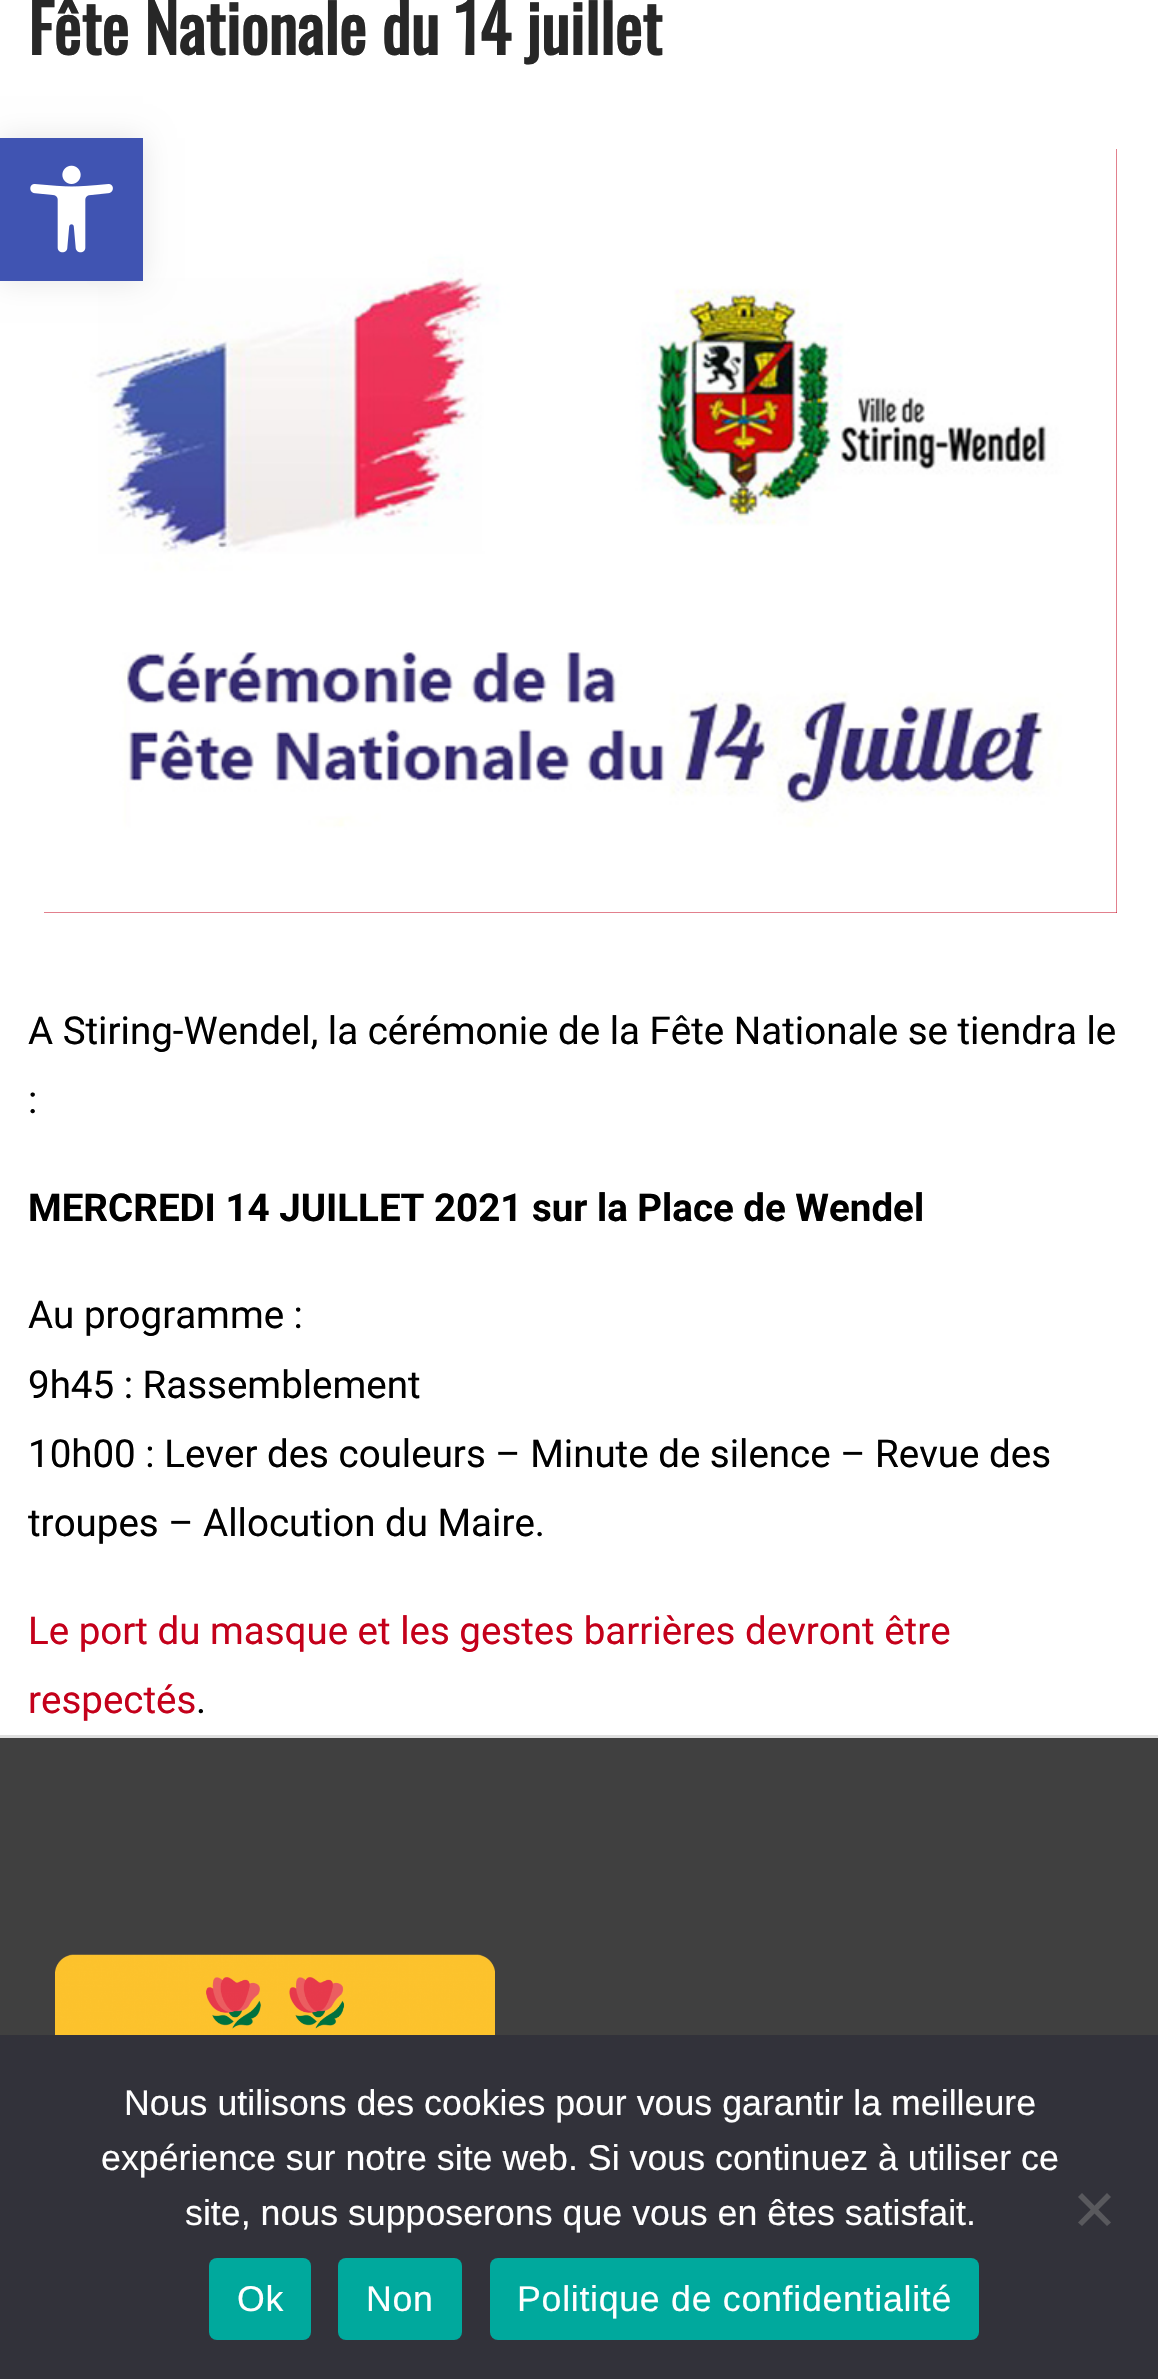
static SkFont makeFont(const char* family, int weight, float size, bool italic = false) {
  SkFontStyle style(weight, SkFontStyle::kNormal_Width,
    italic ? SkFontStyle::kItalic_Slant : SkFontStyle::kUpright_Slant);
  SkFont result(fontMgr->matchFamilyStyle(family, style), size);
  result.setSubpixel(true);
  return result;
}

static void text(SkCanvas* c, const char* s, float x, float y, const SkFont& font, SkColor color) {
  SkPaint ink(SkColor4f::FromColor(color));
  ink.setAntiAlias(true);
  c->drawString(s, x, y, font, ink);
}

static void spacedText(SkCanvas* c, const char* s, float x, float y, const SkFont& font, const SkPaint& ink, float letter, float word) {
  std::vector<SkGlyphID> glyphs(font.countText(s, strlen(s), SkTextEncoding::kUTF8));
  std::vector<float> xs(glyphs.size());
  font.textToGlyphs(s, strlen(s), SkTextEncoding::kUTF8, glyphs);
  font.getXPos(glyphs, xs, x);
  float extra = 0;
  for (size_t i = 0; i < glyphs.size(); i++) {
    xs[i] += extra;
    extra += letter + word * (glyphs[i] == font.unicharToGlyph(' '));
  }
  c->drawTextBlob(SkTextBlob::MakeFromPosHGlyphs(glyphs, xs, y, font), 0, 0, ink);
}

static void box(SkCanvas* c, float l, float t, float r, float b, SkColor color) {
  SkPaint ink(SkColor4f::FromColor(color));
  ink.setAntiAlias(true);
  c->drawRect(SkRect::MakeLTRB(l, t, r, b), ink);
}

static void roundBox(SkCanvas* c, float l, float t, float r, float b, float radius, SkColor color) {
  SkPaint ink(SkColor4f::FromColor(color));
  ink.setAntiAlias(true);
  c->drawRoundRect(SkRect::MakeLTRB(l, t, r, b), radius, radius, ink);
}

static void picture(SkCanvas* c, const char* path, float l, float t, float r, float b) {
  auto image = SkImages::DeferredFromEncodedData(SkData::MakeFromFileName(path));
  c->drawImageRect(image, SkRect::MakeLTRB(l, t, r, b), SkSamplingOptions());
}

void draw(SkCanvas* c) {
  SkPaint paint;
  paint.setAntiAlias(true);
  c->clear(0xffffffff);
  SkFont face1 = makeFont("Oswald", 700, 65.5f);
  text(c, "Fête Nationale du 14 juillet", 28, 55, face1, 0xff272727);
  box(c, 44, 149, 1117, 913, 0xffc4001a);
  picture(c, "img_01.png", 44, 149, 1117, 913);
  SkFont face2 = makeFont("Roboto", 400, 38.5f);
  text(c, "A Stiring-Wendel, la cérémonie de la Fête Nationale se tiendra le", 28, 1044, face2, 0xff000000);
  text(c, ":", 28, 1113, face2, 0xff000000);
  SkFont face3 = makeFont("Roboto", 700, 38.5f);
  text(c, "MERCREDI 14 JUILLET 2021 sur la Place de Wendel", 28, 1221, face3, 0xff000000);
  text(c, "Au programme :", 28, 1328, face2, 0xff000000);
  text(c, "9h45 : Rassemblement", 28, 1398, face2, 0xff000000);
  text(c, "10h00 : Lever des couleurs – Minute de silence – Revue des", 28, 1467, face2, 0xff000000);
  text(c, "troupes – Allocution du Maire.", 28, 1536, face2, 0xff000000);
  text(c, "Le port du masque et les gestes barrières devront être", 28, 1644, face2, 0xffc4001a);
  text(c, "respectés", 28, 1713, face2, 0xffc4001a);
  text(c, ".", 196, 1713, face2, 0xff000000);
  box(c, 0, 1738, 1158, 2035, 0xff404040);
  box(c, 0, 1735, 1158, 1738, 0xffdfdfdf);
  picture(c, "img_02.png", 55, 1954, 495, 2035);
  paint.setColor(0x1a000000);
  paint.setMaskFilter(SkMaskFilter::MakeBlur(kNormal_SkBlurStyle, 14));
  c->drawRect(SkRect::MakeLTRB(0, 138, 143, 281), paint);
  paint.setMaskFilter(nullptr);
  box(c, 0, 138, 143, 281, 0xff4054b2);
  picture(c, "img_03.png", 30, 165, 113, 253);
  box(c, 0, 2035, 1158, 2379, 0xff32323a);
  SkFont face4 = makeFont("Liberation Sans", 400, 35.75f);
  text(c, "Nous utilisons des cookies pour vous garantir la meilleure", 124, 2115, face4, 0xffffffff);
  text(c, "expérience sur notre site web. Si vous continuez à utiliser ce", 101, 2170, face4, 0xffffffff);
  text(c, "site, nous supposerons que vous en êtes satisfait.", 185, 2225, face4, 0xffffffff);
  paint.setColor(0xff59595d);
  c->drawPath(SkPathBuilder().moveTo(1107, 2193).lineTo(1111, 2197).lineTo(1082, 2226).lineTo(1078, 2222.5f).close().detach(), paint);
  c->drawPath(SkPathBuilder().moveTo(1078, 2197).lineTo(1082, 2193).lineTo(1111, 2222.5f).lineTo(1107, 2226).close().detach(), paint);
  roundBox(c, 209, 2258, 311, 2340, 8, 0xff00a99d);
  paint.setColor(0xffffffff);
  spacedText(c, "Ok", 237, 2311, face4, paint, 0.7f, 0);
  roundBox(c, 338, 2258, 462, 2340, 8, 0xff00a99d);
  spacedText(c, "Non", 366, 2311, face4, paint, 0.7f, 0);
  roundBox(c, 490, 2258, 979, 2340, 8, 0xff00a99d);
  spacedText(c, "Politique de confidentialité", 517, 2311, face4, paint, 0.7f, 0);
}
